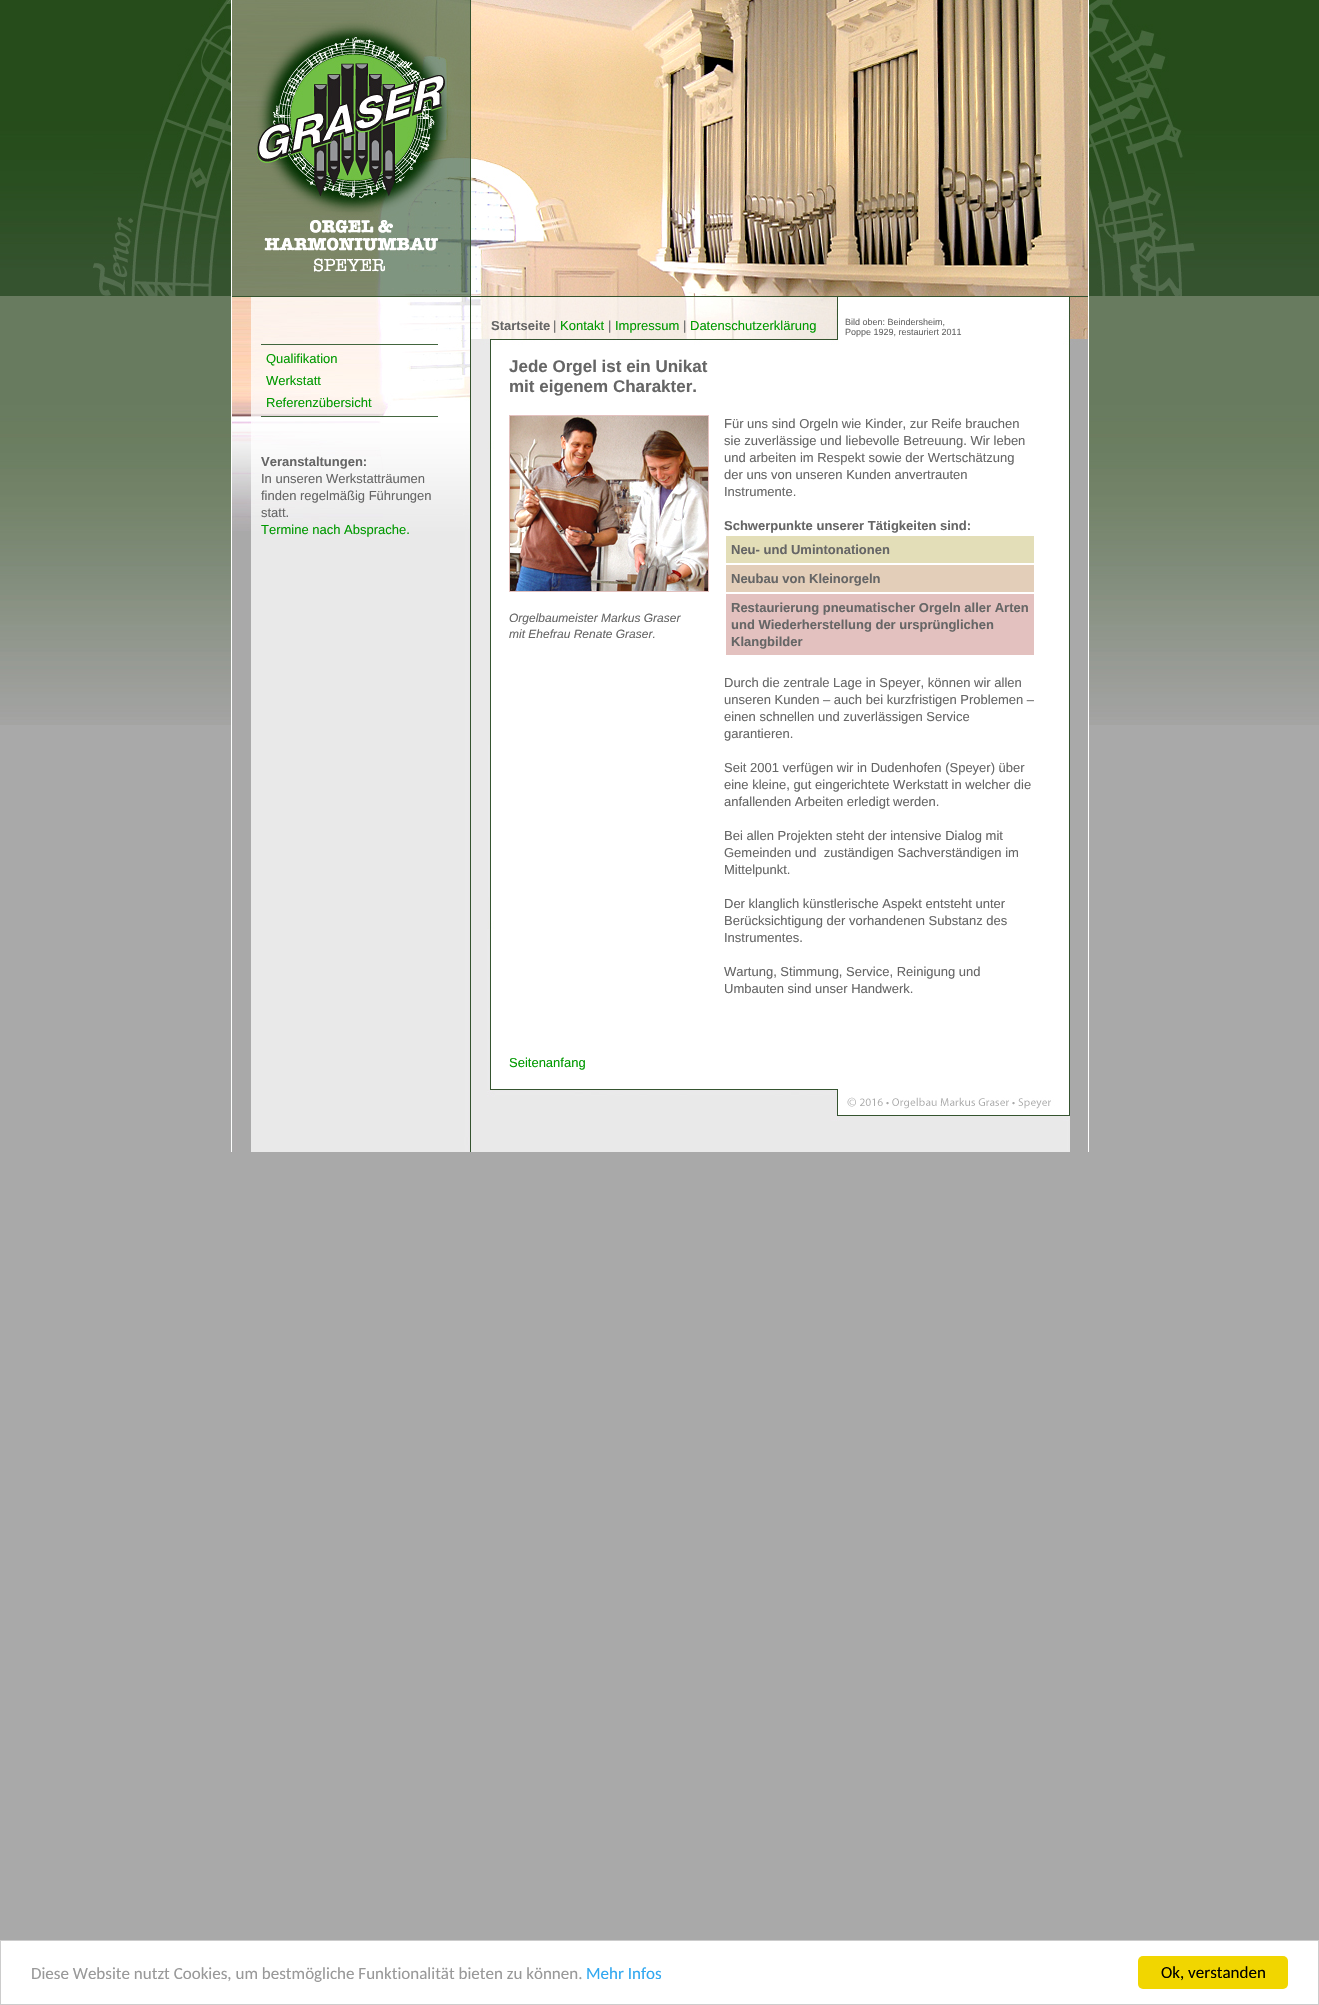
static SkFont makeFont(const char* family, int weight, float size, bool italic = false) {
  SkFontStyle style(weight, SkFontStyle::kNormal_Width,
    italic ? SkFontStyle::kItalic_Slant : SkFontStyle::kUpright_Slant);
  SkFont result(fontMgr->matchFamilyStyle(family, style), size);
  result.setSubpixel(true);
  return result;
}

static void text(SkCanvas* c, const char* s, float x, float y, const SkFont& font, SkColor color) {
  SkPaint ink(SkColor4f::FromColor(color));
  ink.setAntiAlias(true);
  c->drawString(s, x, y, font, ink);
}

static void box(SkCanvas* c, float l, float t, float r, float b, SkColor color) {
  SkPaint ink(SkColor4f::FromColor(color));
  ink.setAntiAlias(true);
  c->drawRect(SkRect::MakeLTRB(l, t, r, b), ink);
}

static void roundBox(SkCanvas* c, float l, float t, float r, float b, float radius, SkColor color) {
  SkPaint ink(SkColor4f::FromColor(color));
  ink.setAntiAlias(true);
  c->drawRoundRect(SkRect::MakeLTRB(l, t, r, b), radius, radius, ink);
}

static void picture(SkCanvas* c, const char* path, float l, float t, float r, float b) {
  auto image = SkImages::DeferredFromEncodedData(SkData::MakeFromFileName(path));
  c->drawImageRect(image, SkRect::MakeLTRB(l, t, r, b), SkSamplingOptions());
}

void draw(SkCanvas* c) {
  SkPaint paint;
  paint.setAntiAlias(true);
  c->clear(0xffa9a9a9);
  picture(c, "img_01.png", 0, 0, 1319, 725);
  picture(c, "img_02.png", 93, 0, 231, 296);
  picture(c, "img_03.png", 1089, 0, 1195, 296);
  box(c, 231, 0, 1089, 1152, 0xffffffff);
  picture(c, "img_04.png", 232, 0, 471, 1089);
  picture(c, "img_05.png", 232, 0, 470, 297);
  picture(c, "img_06.png", 231, 297, 470, 531);
  box(c, 261, 344, 438, 345, 0xff42653e);
  SkFont face1 = makeFont("Liberation Sans", 400, 13);
  text(c, "Qualifikation", 266, 363, face1, 0xff009900);
  text(c, "Werkstatt", 266, 385, face1, 0xff009900);
  text(c, "Referenzübersicht", 266, 407, face1, 0xff009900);
  box(c, 261, 416, 438, 417, 0xff42653e);
  SkFont face2 = makeFont("Liberation Sans", 700, 13);
  text(c, "Veranstaltungen:", 261, 466, face2, 0xff666666);
  text(c, "In unseren Werkstatträumen", 261, 483, face1, 0xff666666);
  text(c, "finden regelmäßig Führungen", 261, 500, face1, 0xff666666);
  text(c, "statt.", 261, 517, face1, 0xff666666);
  text(c, "Termine nach Absprache.", 261, 534, face1, 0xff009900);
  picture(c, "img_07.png", 471, 929, 1088, 1089);
  picture(c, "img_08.png", 471, 0, 1088, 297);
  picture(c, "img_09.png", 471, 297, 1088, 929);
  text(c, "Startseite", 491, 330, face2, 0xff666666);
  text(c, "|", 553, 330, face1, 0xff666666);
  text(c, "Kontakt", 560, 330, face1, 0xff009900);
  text(c, "|", 608, 330, face1, 0xff666666);
  text(c, "Impressum", 615, 330, face1, 0xff009900);
  text(c, "|", 683, 330, face1, 0xff666666);
  text(c, "Datenschutzerklärung", 690, 330, face1, 0xff009900);
  SkFont face3 = makeFont("Liberation Sans", 400, 9);
  text(c, "Bild oben: Beindersheim,", 845, 325, face3, 0xff666666);
  text(c, "Poppe 1929, restauriert 2011", 845, 335, face3, 0xff666666);
  SkFont face4 = makeFont("Liberation Sans", 700, 17);
  text(c, "Jede Orgel ist ein Unikat", 509, 372, face4, 0xff666666);
  text(c, "mit eigenem Charakter.", 509, 392, face4, 0xff666666);
  picture(c, "img_10.png", 509, 415, 709, 592);
  SkFont face5 = makeFont("Liberation Sans", 400, 12, true);
  text(c, "Orgelbaumeister Markus Graser", 509, 622, face5, 0xff666666);
  text(c, "mit Ehefrau Renate Graser.", 509, 638, face5, 0xff666666);
  text(c, "Für uns sind Orgeln wie Kinder, zur Reife brauchen", 724, 428, face1, 0xff666666);
  text(c, "sie zuverlässige und liebevolle Betreuung. Wir leben", 724, 445, face1, 0xff666666);
  text(c, "und arbeiten im Respekt sowie der Wertschätzung", 724, 462, face1, 0xff666666);
  text(c, "der uns von unseren Kunden anvertrauten", 724, 479, face1, 0xff666666);
  text(c, "Instrumente.", 724, 496, face1, 0xff666666);
  text(c, "Schwerpunkte unserer Tätigkeiten sind:", 724, 530, face2, 0xff666666);
  box(c, 726, 536, 1034, 563, 0xffe3deb8);
  text(c, "Neu- und Umintonationen", 731, 554, face2, 0xff666666);
  box(c, 726, 565, 1034, 592, 0xffe3ceb9);
  text(c, "Neubau von Kleinorgeln", 731, 583, face2, 0xff666666);
  box(c, 726, 594, 1034, 655, 0xffe3c1bf);
  text(c, "Restaurierung pneumatischer Orgeln aller Arten", 731, 612, face2, 0xff666666);
  text(c, "und Wiederherstellung der ursprünglichen", 731, 629, face2, 0xff666666);
  text(c, "Klangbilder", 731, 646, face2, 0xff666666);
  text(c, "Durch die zentrale Lage in Speyer, können wir allen", 724, 687, face1, 0xff666666);
  text(c, "unseren Kunden – auch bei kurzfristigen Problemen –", 724, 704, face1, 0xff666666);
  text(c, "einen schnellen und zuverlässigen Service", 724, 721, face1, 0xff666666);
  text(c, "garantieren.", 724, 738, face1, 0xff666666);
  text(c, "Seit 2001 verfügen wir in Dudenhofen (Speyer) über", 724, 772, face1, 0xff666666);
  text(c, "eine kleine, gut eingerichtete Werkstatt in welcher die", 724, 789, face1, 0xff666666);
  text(c, "anfallenden Arbeiten erledigt werden.", 724, 806, face1, 0xff666666);
  text(c, "Bei allen Projekten steht der intensive Dialog mit", 724, 840, face1, 0xff666666);
  text(c, "Gemeinden und  zuständigen Sachverständigen im", 724, 857, face1, 0xff666666);
  text(c, "Mittelpunkt.", 724, 874, face1, 0xff666666);
  text(c, "Der klanglich künstlerische Aspekt entsteht unter", 724, 908, face1, 0xff666666);
  text(c, "Berücksichtigung der vorhandenen Substanz des", 724, 925, face1, 0xff666666);
  text(c, "Instrumentes.", 724, 942, face1, 0xff666666);
  text(c, "Wartung, Stimmung, Service, Reinigung und", 724, 976, face1, 0xff666666);
  text(c, "Umbauten sind unser Handwerk.", 724, 993, face1, 0xff666666);
  text(c, "Seitenanfang", 509, 1067, face1, 0xff009900);
  picture(c, "img_11.png", 232, 1089, 1088, 1152);
  paint.setColor(0xffffffff);
  c->drawRect(SkRect::MakeLTRB(0.5f, 1940.5f, 1318.5f, 2004.5f), paint);
  paint.setStyle(SkPaint::kStroke_Style);
  paint.setStrokeWidth(1);
  paint.setColor(0xffcccccc);
  c->drawRect(SkRect::MakeLTRB(0.5f, 1940.5f, 1318.5f, 2004.5f), paint);
  SkFont face6 = makeFont("Carlito", 400, 17);
  text(c, "Diese Website nutzt Cookies, um bestmögliche Funktionalität bieten zu können.", 31, 1979, face6, 0xff999999);
  text(c, "Mehr Infos", 586, 1979, face6, 0xff31a8f0);
  roundBox(c, 1138, 1956, 1288, 1989, 5, 0xfff1d600);
  text(c, "Ok, verstanden", 1161, 1978, face6, 0xff000000);
}
